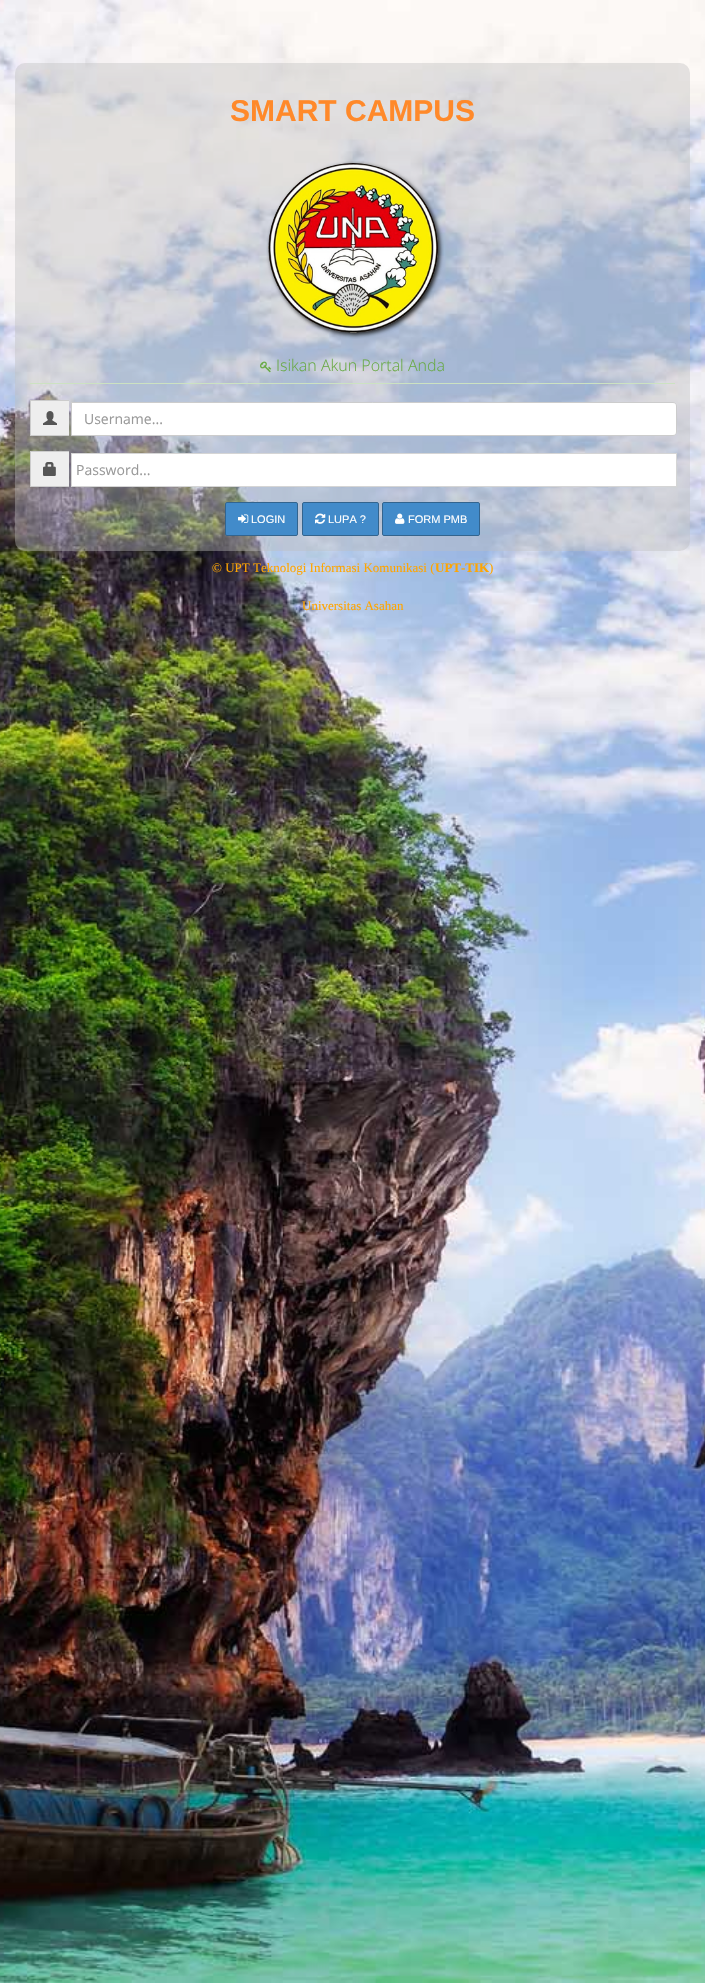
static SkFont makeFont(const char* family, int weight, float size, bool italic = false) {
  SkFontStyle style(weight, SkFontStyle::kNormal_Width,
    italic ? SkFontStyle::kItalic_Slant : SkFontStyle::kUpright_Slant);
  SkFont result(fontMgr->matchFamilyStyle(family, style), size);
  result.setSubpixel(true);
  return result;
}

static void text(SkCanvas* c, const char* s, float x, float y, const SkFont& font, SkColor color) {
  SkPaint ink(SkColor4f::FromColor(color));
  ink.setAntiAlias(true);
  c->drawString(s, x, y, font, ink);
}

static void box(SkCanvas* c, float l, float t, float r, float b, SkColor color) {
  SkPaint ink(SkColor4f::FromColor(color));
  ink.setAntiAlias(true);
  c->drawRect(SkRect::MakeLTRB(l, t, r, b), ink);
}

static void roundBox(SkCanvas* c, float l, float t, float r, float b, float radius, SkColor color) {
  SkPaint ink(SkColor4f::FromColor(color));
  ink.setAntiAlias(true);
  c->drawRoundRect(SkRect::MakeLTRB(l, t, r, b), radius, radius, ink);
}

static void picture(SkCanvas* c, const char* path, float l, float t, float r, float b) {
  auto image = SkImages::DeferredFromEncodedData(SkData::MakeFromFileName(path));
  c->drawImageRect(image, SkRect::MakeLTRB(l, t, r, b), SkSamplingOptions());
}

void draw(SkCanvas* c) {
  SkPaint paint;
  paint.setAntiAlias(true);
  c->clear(0xffffffff);
  picture(c, "img_01.png", 0, 0, 705, 1983);
  roundBox(c, 15, 63, 690, 551, 10, 0x66bdbdbd);
  SkFont face1 = makeFont("Liberation Sans", 700, 30);
  text(c, "SMART CAMPUS", 230, 121, face1, 0xffff892a);
  picture(c, "img_02.png", 266, 161, 444, 339);
  box(c, 30, 383, 675, 384, 0xffcce2c1);
  picture(c, "img_03.png", 260, 361, 272, 373);
  SkFont face2 = makeFont("Open Sans", 300, 16);
  text(c, "Isikan Akun Portal Anda", 276, 371, face2, 0xff69aa46);
  box(c, 31, 401, 69, 435, 0xffeeeeee);
  box(c, 30, 400, 69, 401, 0xffcccccc);
  box(c, 30, 435, 69, 436, 0xffcccccc);
  box(c, 30, 400, 31, 436, 0xffcccccc);
  picture(c, "img_04.png", 43, 411, 57, 425);
  paint.setColor(0xffffffff);
  c->drawPath(SkPathBuilder().moveTo(71.5f, 402.5f).lineTo(673, 402.5f).cubicTo(675, 402.5f, 676.5f, 404, 676.5f, 406).lineTo(676.5f, 432).cubicTo(676.5f, 434, 675, 435.5f, 673, 435.5f).lineTo(71.5f, 435.5f).close().detach(), paint);
  paint.setStyle(SkPaint::kStroke_Style);
  paint.setStrokeWidth(1);
  paint.setColor(0xffcccccc);
  c->drawPath(SkPathBuilder().moveTo(71.5f, 402.5f).lineTo(673, 402.5f).cubicTo(675, 402.5f, 676.5f, 404, 676.5f, 406).lineTo(676.5f, 432).cubicTo(676.5f, 434, 675, 435.5f, 673, 435.5f).lineTo(71.5f, 435.5f).close().detach(), paint);
  SkFont face3 = makeFont("Open Sans", 400, 14);
  text(c, "Username...", 84, 424, face3, 0xff999999);
  box(c, 31, 452, 69, 486, 0xffeeeeee);
  box(c, 30, 451, 69, 452, 0xffcccccc);
  box(c, 30, 486, 69, 487, 0xffcccccc);
  box(c, 30, 451, 31, 487, 0xffcccccc);
  picture(c, "img_05.png", 43, 462, 56, 476);
  paint.setStyle(SkPaint::kFill_Style);
  paint.setColor(0xffffffff);
  c->drawRect(SkRect::MakeLTRB(71.5f, 453.5f, 676.5f, 486.5f), paint);
  paint.setStyle(SkPaint::kStroke_Style);
  paint.setColor(0xffd5d5d5);
  c->drawRect(SkRect::MakeLTRB(71.5f, 453.5f, 676.5f, 486.5f), paint);
  text(c, "Password...", 76, 475, face3, 0xff999999);
  paint.setStyle(SkPaint::kFill_Style);
  paint.setColor(0xff428bca);
  c->drawRoundRect(SkRect::MakeLTRB(225.5f, 502.5f, 297.5f, 535.5f), 1.5f, 1.5f, paint);
  paint.setStyle(SkPaint::kStroke_Style);
  paint.setColor(0xff33648e);
  c->drawRoundRect(SkRect::MakeLTRB(225.5f, 502.5f, 297.5f, 535.5f), 1.5f, 1.5f, paint);
  picture(c, "img_06.png", 238, 514, 249, 523);
  SkFont face4 = makeFont("Liberation Sans", 400, 11);
  text(c, "LOGIN", 251, 523, face4, 0xffffffff);
  paint.setStyle(SkPaint::kFill_Style);
  paint.setColor(0xff428bca);
  c->drawRoundRect(SkRect::MakeLTRB(302.5f, 502.5f, 378.5f, 535.5f), 1.5f, 1.5f, paint);
  paint.setStyle(SkPaint::kStroke_Style);
  paint.setColor(0xff33648e);
  c->drawRoundRect(SkRect::MakeLTRB(302.5f, 502.5f, 378.5f, 535.5f), 1.5f, 1.5f, paint);
  picture(c, "img_07.png", 315, 513, 326, 524);
  text(c, "LUPA ?", 328, 523, face4, 0xffffffff);
  paint.setStyle(SkPaint::kFill_Style);
  paint.setColor(0xff428bca);
  c->drawRoundRect(SkRect::MakeLTRB(382.5f, 502.5f, 479.5f, 535.5f), 1.5f, 1.5f, paint);
  paint.setStyle(SkPaint::kStroke_Style);
  paint.setColor(0xff33648e);
  c->drawRoundRect(SkRect::MakeLTRB(382.5f, 502.5f, 479.5f, 535.5f), 1.5f, 1.5f, paint);
  picture(c, "img_08.png", 395, 513, 405, 524);
  text(c, "FORM PMB", 408, 523, face4, 0xffffffff);
  SkFont face5 = makeFont("Liberation Serif", 400, 13);
  text(c, "© UPT Teknologi Informasi Komunikasi (", 212, 572, face5, 0xffffa500);
  SkFont face6 = makeFont("Liberation Serif", 700, 13);
  text(c, "UPT-TIK", 435, 572, face6, 0xffffa500);
  text(c, ")", 489, 572, face5, 0xffffa500);
  text(c, "Universitas Asahan", 302, 610, face5, 0xffffa500);
}
